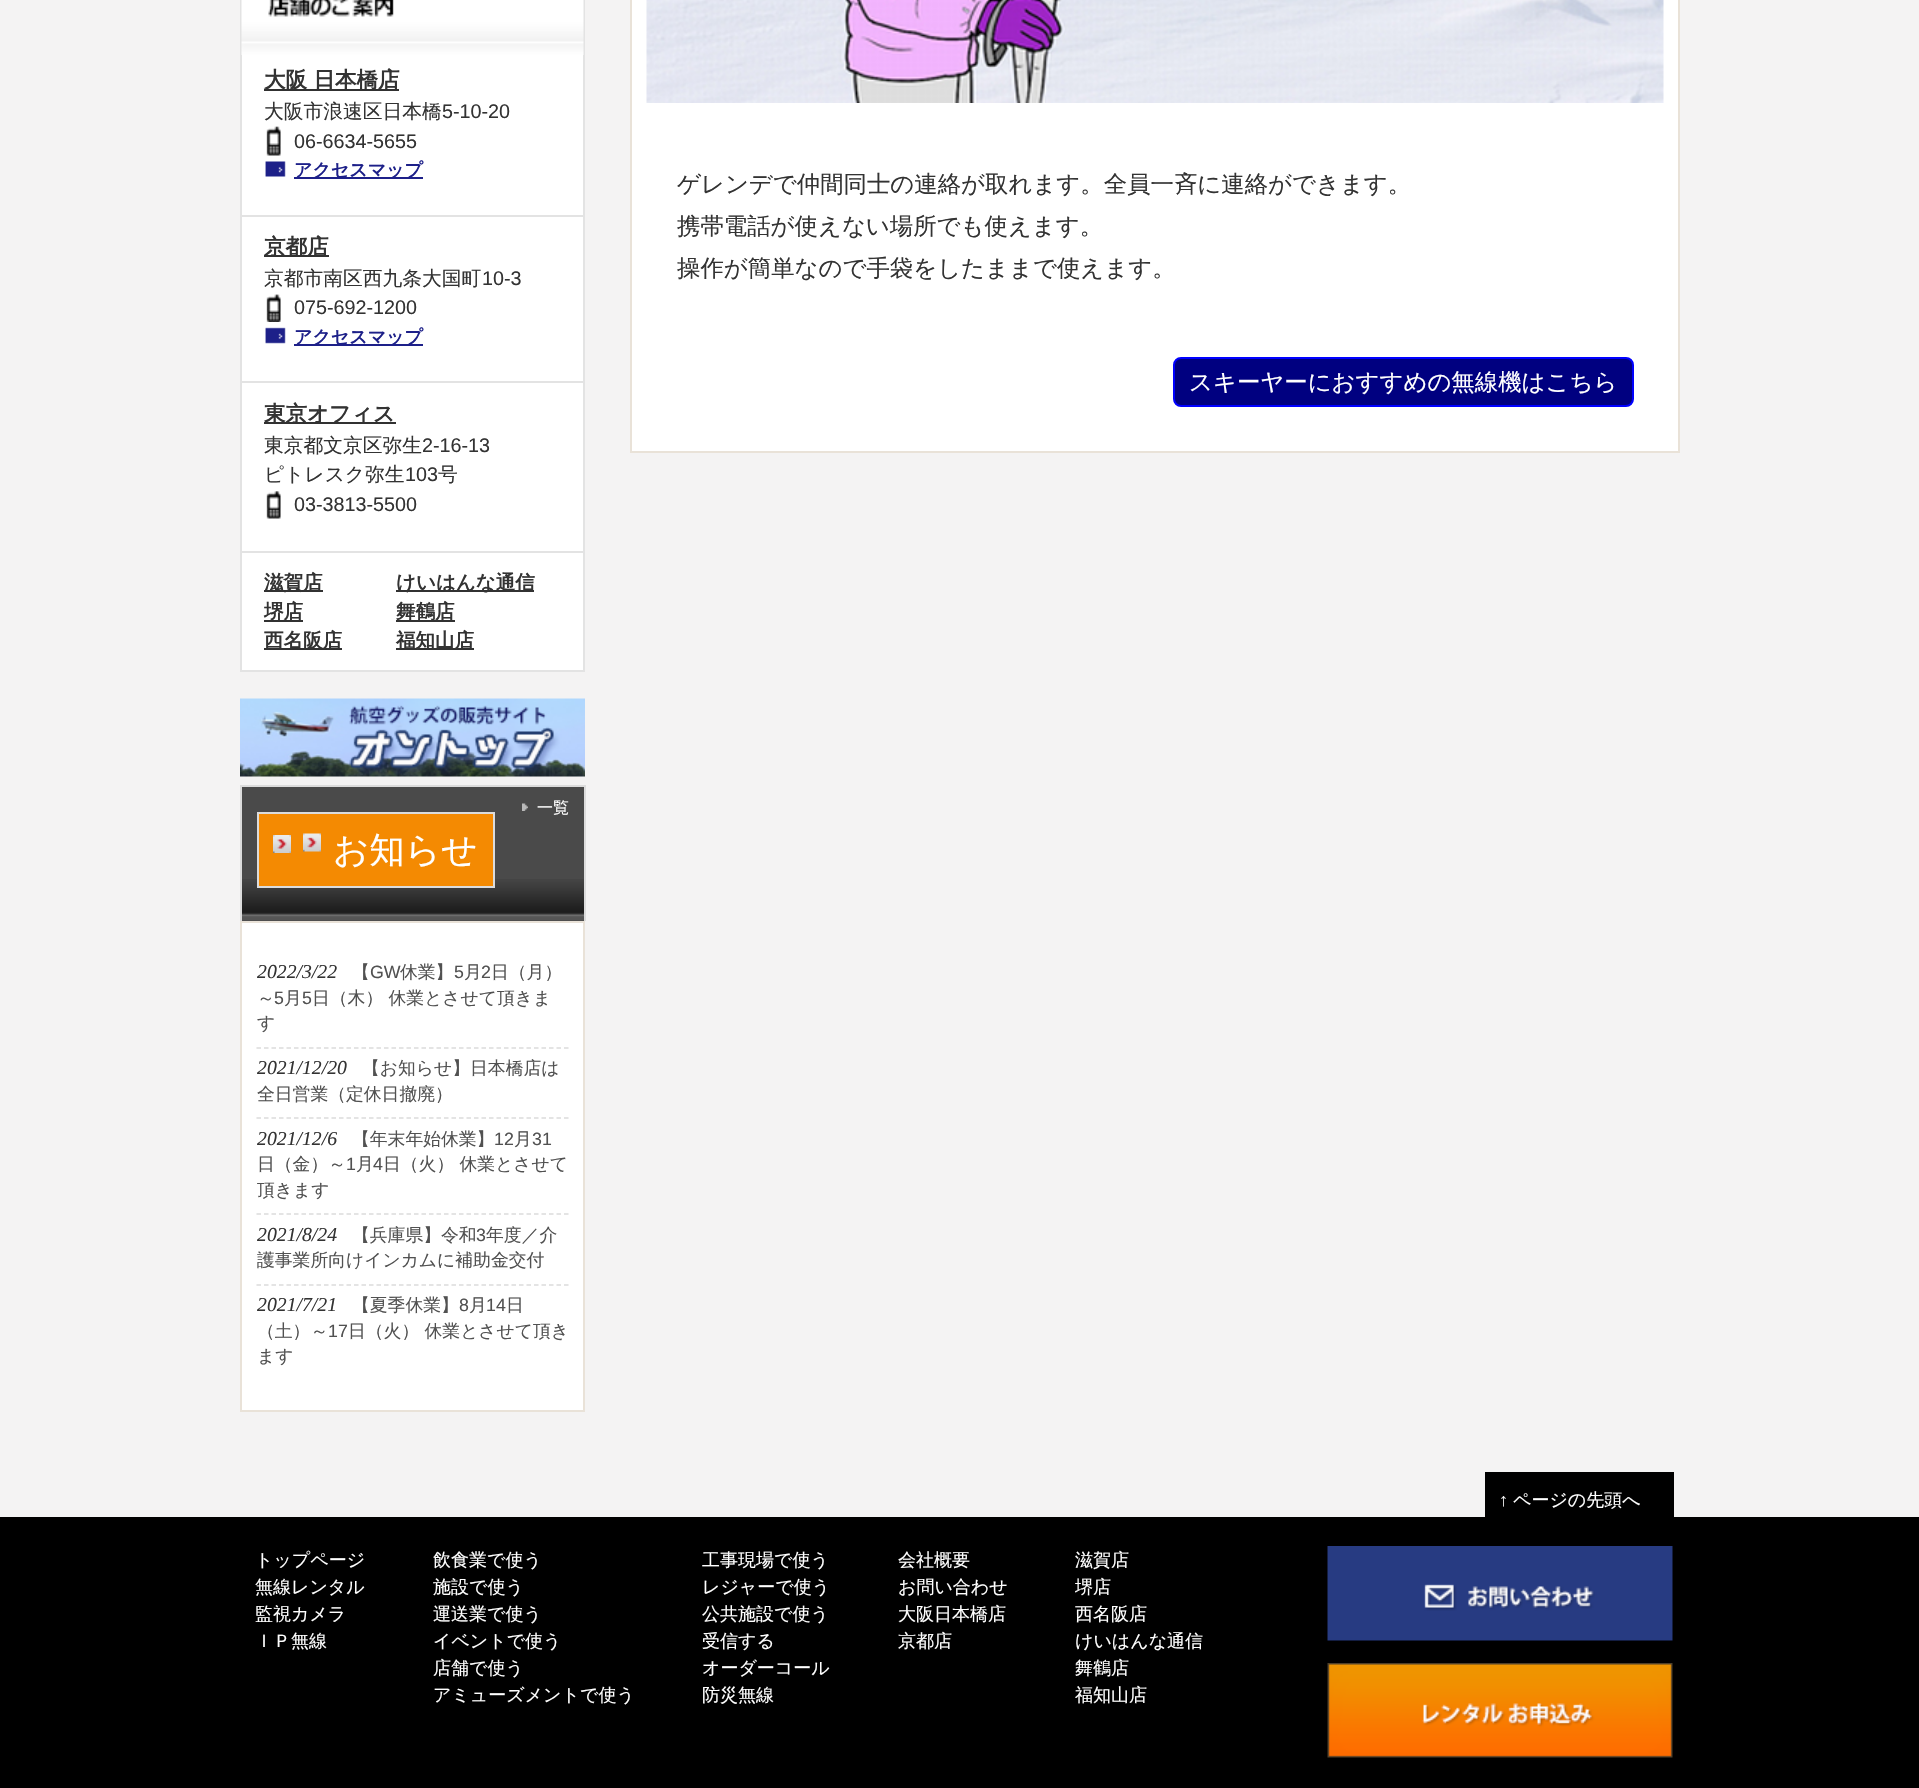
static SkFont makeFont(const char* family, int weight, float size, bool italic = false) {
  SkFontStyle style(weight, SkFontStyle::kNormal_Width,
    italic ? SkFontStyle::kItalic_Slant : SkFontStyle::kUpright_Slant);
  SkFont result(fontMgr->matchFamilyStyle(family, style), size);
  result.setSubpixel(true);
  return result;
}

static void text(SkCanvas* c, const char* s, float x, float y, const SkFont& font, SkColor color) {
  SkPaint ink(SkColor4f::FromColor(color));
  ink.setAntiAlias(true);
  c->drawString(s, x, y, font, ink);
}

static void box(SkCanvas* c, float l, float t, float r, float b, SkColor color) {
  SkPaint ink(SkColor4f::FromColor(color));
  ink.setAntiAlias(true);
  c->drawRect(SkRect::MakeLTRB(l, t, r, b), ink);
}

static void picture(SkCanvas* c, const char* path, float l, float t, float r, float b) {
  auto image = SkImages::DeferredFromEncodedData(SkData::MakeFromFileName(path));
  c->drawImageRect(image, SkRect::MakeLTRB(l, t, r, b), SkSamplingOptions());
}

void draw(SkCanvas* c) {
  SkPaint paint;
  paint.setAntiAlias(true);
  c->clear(0xfff4f3f3);
  box(c, 242, 55, 583, 215, 0xffffffff);
  paint.setStyle(SkPaint::kStroke_Style);
  paint.setStrokeWidth(2);
  paint.setColor(0xffe3e3e3);
  c->drawRect(SkRect::MakeLTRB(241, 49, 584, 229), paint);
  picture(c, "img_01.png", 240, 0, 585, 55);
  box(c, 264, 89, 399, 91, 0xff313131);
  SkFont face1 = makeFont("WenQuanYi Zen Hei", 700, 21.5f);
  text(c, "大阪 日本橋店", 264, 87, face1, 0xff333333);
  SkFont face2 = makeFont("WenQuanYi Zen Hei", 500, 19.75f);
  text(c, "大阪市浪速区日本橋", 264, 118, face2, 0xff333333);
  SkFont face3 = makeFont("Liberation Sans", 400, 19.75f);
  text(c, "5-10-20", 442, 118, face3, 0xff333333);
  picture(c, "img_02.png", 266, 126, 281, 156);
  text(c, "06-6634-5655", 294, 148, face3, 0xff333333);
  picture(c, "img_03.png", 265, 161, 286, 177);
  box(c, 294, 177, 423, 179, 0xff1d2089);
  SkFont face4 = makeFont("WenQuanYi Zen Hei", 700, 18);
  text(c, "アクセスマップ", 294, 176, face4, 0xff1d2089);
  box(c, 242, 217, 583, 381, 0xffffffff);
  c->drawRect(SkRect::MakeLTRB(241, 216, 584, 395), paint);
  box(c, 264, 255, 329, 257, 0xff313131);
  text(c, "京都店", 264, 254, face1, 0xff333333);
  text(c, "京都市南区西九条大国町", 264, 285, face2, 0xff333333);
  text(c, "10-3", 482, 285, face3, 0xff333333);
  picture(c, "img_04.png", 266, 294, 281, 322);
  text(c, "075-692-1200", 294, 314, face3, 0xff333333);
  picture(c, "img_05.png", 265, 327, 286, 344);
  box(c, 294, 344, 423, 346, 0xff1d2089);
  text(c, "アクセスマップ", 294, 343, face4, 0xff1d2089);
  box(c, 242, 383, 583, 551, 0xffffffff);
  c->drawRect(SkRect::MakeLTRB(241, 382, 584, 565), paint);
  box(c, 264, 422, 396, 424, 0xff313131);
  text(c, "東京オフィス", 264, 421, face1, 0xff333333);
  text(c, "東京都文京区弥生", 264, 452, face2, 0xff333333);
  text(c, "2-16-13", 422, 452, face3, 0xff333333);
  text(c, "ピトレスク弥生", 264, 481, face2, 0xff333333);
  text(c, "103", 405, 481, face3, 0xff333333);
  text(c, "号", 438, 481, face2, 0xff333333);
  picture(c, "img_06.png", 266, 491, 281, 519);
  text(c, "03-3813-5500", 294, 511, face3, 0xff333333);
  paint.setStyle(SkPaint::kFill_Style);
  paint.setColor(0xffffffff);
  c->drawRect(SkRect::MakeLTRB(241, 552, 584, 671), paint);
  paint.setStyle(SkPaint::kStroke_Style);
  paint.setColor(0xffe3e3e3);
  c->drawRect(SkRect::MakeLTRB(241, 552, 584, 671), paint);
  box(c, 264, 590, 323, 592, 0xff313131);
  SkFont face5 = makeFont("WenQuanYi Zen Hei", 700, 19.5f);
  text(c, "滋賀店", 264, 589, face5, 0xff333333);
  box(c, 264, 620, 303, 622, 0xff313131);
  text(c, "堺店", 264, 618, face5, 0xff333333);
  box(c, 264, 648, 342, 650, 0xff313131);
  text(c, "西名阪店", 264, 647, face5, 0xff333333);
  box(c, 396, 590, 534, 592, 0xff313131);
  text(c, "けいはんな通信", 396, 589, face5, 0xff333333);
  box(c, 396, 620, 455, 622, 0xff313131);
  text(c, "舞鶴店", 396, 618, face5, 0xff333333);
  box(c, 396, 648, 474, 650, 0xff313131);
  text(c, "福知山店", 396, 647, face5, 0xff333333);
  picture(c, "img_07.png", 240, 698, 585, 777);
  box(c, 242, 787, 584, 921, 0xff4a4a4a);
  picture(c, "img_08.png", 242, 879, 584, 921);
  box(c, 240, 785, 585, 787, 0xffdcdcdc);
  box(c, 584, 785, 586, 921, 0xffdcdcdc);
  box(c, 240, 785, 242, 921, 0xffdcdcdc);
  picture(c, "img_09.png", 522, 803, 528, 811);
  SkFont face6 = makeFont("WenQuanYi Zen Hei", 500, 16);
  text(c, "一覧", 537, 813, face6, 0xffffffff);
  box(c, 259, 814, 493, 886, 0xfff48a02);
  picture(c, "img_10.png", 273, 835, 291, 853);
  paint.setColor(0xffdcdcdc);
  c->drawRect(SkRect::MakeLTRB(258, 813, 494, 887), paint);
  picture(c, "img_11.png", 303, 833, 321, 852);
  SkFont face7 = makeFont("WenQuanYi Zen Hei", 500, 35.5f);
  text(c, "お知らせ", 333, 862, face7, 0xffffffff);
  paint.setStyle(SkPaint::kFill_Style);
  paint.setColor(0xffffffff);
  c->drawRect(SkRect::MakeLTRB(241, 922, 584, 1411), paint);
  paint.setStyle(SkPaint::kStroke_Style);
  paint.setColor(0xffe9e2d8);
  c->drawRect(SkRect::MakeLTRB(241, 922, 584, 1411), paint);
  paint.setStrokeWidth(1.5f);
  paint.setColor(0xffdcdcdc);
  paint.setPathEffect(SkDashPathEffect::Make({{4.5f, 3}}, 0));
  c->drawPath(SkPathBuilder().moveTo(256.5f, 1048).lineTo(568.5f, 1048).detach(), paint);
  paint.setPathEffect(nullptr);
  SkFont face8 = makeFont("Liberation Serif", 400, 19.75f, true);
  text(c, "2022/3/22", 257, 978, face8, 0xff333333);
  SkFont face9 = makeFont("WenQuanYi Zen Hei", 500, 17.8f);
  text(c, "【", 352, 978, face9, 0xff515151);
  SkFont face10 = makeFont("Liberation Sans", 400, 17.8f);
  text(c, "GW", 370, 978, face10, 0xff515151);
  text(c, "休業】", 400, 978, face9, 0xff515151);
  text(c, "5", 454, 978, face10, 0xff515151);
  text(c, "月", 464, 978, face9, 0xff515151);
  text(c, "2", 481, 978, face10, 0xff515151);
  text(c, "日（月）", 491, 978, face9, 0xff515151);
  text(c, "～", 257, 1004, face9, 0xff515151);
  text(c, "5", 274, 1004, face10, 0xff515151);
  text(c, "月", 284, 1004, face9, 0xff515151);
  text(c, "5", 302, 1004, face10, 0xff515151);
  text(c, "日（木） 休業とさせて頂きま", 312, 1004, face9, 0xff515151);
  text(c, "す", 257, 1029, face9, 0xff515151);
  paint.setPathEffect(SkDashPathEffect::Make({{4.5f, 3}}, 0));
  c->drawPath(SkPathBuilder().moveTo(256.5f, 1118).lineTo(568.5f, 1118).detach(), paint);
  paint.setPathEffect(nullptr);
  text(c, "2021/12/20", 257, 1074, face8, 0xff333333);
  text(c, "【お知らせ】日本橋店は", 362, 1074, face9, 0xff515151);
  text(c, "全日営業（定休日撤廃）", 257, 1100, face9, 0xff515151);
  paint.setPathEffect(SkDashPathEffect::Make({{4.5f, 3}}, 0));
  c->drawPath(SkPathBuilder().moveTo(256.5f, 1214).lineTo(568.5f, 1214).detach(), paint);
  paint.setPathEffect(nullptr);
  text(c, "2021/12/6", 257, 1145, face8, 0xff333333);
  text(c, "【年末年始休業】", 352, 1145, face9, 0xff515151);
  text(c, "12", 494, 1145, face10, 0xff515151);
  text(c, "月", 514, 1145, face9, 0xff515151);
  text(c, "31", 532, 1145, face10, 0xff515151);
  text(c, "日（金）～", 257, 1170, face9, 0xff515151);
  text(c, "1", 346, 1170, face10, 0xff515151);
  text(c, "月", 356, 1170, face9, 0xff515151);
  text(c, "4", 373, 1170, face10, 0xff515151);
  text(c, "日（火） 休業とさせて", 383, 1170, face9, 0xff515151);
  text(c, "頂きます", 257, 1196, face9, 0xff515151);
  paint.setPathEffect(SkDashPathEffect::Make({{4.5f, 3}}, 0));
  c->drawPath(SkPathBuilder().moveTo(256.5f, 1285).lineTo(568.5f, 1285).detach(), paint);
  paint.setPathEffect(nullptr);
  text(c, "2021/8/24", 257, 1241, face8, 0xff333333);
  text(c, "【兵庫県】令和", 352, 1241, face9, 0xff515151);
  text(c, "3", 476, 1241, face10, 0xff515151);
  text(c, "年度／介", 486, 1241, face9, 0xff515151);
  text(c, "護事業所向けインカムに補助金交付", 257, 1266, face9, 0xff515151);
  text(c, "2021/7/21", 257, 1311, face8, 0xff333333);
  text(c, "【夏季休業】", 352, 1311, face9, 0xff515151);
  text(c, "8", 459, 1311, face10, 0xff515151);
  text(c, "月", 469, 1311, face9, 0xff515151);
  text(c, "14", 486, 1311, face10, 0xff515151);
  text(c, "日", 506, 1311, face9, 0xff515151);
  text(c, "（土）～", 257, 1337, face9, 0xff515151);
  text(c, "17", 328, 1337, face10, 0xff515151);
  text(c, "日（火） 休業とさせて頂き", 348, 1337, face9, 0xff515151);
  text(c, "ます", 257, 1362, face9, 0xff515151);
  paint.setStyle(SkPaint::kFill_Style);
  paint.setColor(0xffffffff);
  c->drawRect(SkRect::MakeLTRB(631, -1, 1679, 452), paint);
  paint.setStyle(SkPaint::kStroke_Style);
  paint.setStrokeWidth(2);
  paint.setColor(0xffe9e2d8);
  c->drawRect(SkRect::MakeLTRB(631, -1, 1679, 452), paint);
  picture(c, "img_12.png", 646, 0, 1664, 103);
  SkFont face11 = makeFont("WenQuanYi Zen Hei", 500, 23.4f);
  text(c, "ゲレンデで仲間同士の連絡が取れます。全員一斉に連絡ができます。", 677, 192, face11, 0xff333333);
  text(c, "携帯電話が使えない場所でも使えます。", 677, 234, face11, 0xff333333);
  text(c, "操作が簡単なので手袋をしたままで使えます。", 677, 276, face11, 0xff333333);
  paint.setStyle(SkPaint::kFill_Style);
  paint.setColor(0xff000080);
  c->drawRoundRect(SkRect::MakeLTRB(1174, 358, 1633, 406), 7, 7, paint);
  paint.setStyle(SkPaint::kStroke_Style);
  paint.setColor(0xff0000ff);
  c->drawRoundRect(SkRect::MakeLTRB(1174, 358, 1633, 406), 7, 7, paint);
  text(c, "スキーヤーにおすすめの無線機はこちら", 1189, 390, face11, 0xffffffff);
  box(c, 0, 1517, 1919, 1788, 0xff000000);
  box(c, 1485, 1472, 1674, 1517, 0xff000000);
  SkFont face12 = makeFont("Liberation Sans", 400, 18);
  text(c, "↑", 1499, 1506, face12, 0xffffffff);
  SkFont face13 = makeFont("WenQuanYi Zen Hei", 500, 18);
  text(c, "ページの先頭へ", 1513, 1506, face13, 0xffffffff);
  text(c, "トップページ", 255, 1566, face13, 0xffffffff);
  text(c, "無線レンタル", 255, 1593, face13, 0xffffffff);
  text(c, "監視カメラ", 255, 1620, face13, 0xffffffff);
  text(c, "ＩＰ無線", 255, 1647, face13, 0xffffffff);
  text(c, "飲食業で使う", 433, 1566, face13, 0xffffffff);
  text(c, "施設で使う", 433, 1593, face13, 0xffffffff);
  text(c, "運送業で使う", 433, 1620, face13, 0xffffffff);
  text(c, "イベントで使う", 433, 1647, face13, 0xffffffff);
  text(c, "店舗で使う", 433, 1674, face13, 0xffffffff);
  text(c, "アミューズメントで使う", 433, 1701, face13, 0xffffffff);
  text(c, "工事現場で使う", 702, 1566, face13, 0xffffffff);
  text(c, "レジャーで使う", 702, 1593, face13, 0xffffffff);
  text(c, "公共施設で使う", 702, 1620, face13, 0xffffffff);
  text(c, "受信する", 702, 1647, face13, 0xffffffff);
  text(c, "オーダーコール", 702, 1674, face13, 0xffffffff);
  text(c, "防災無線", 702, 1701, face13, 0xffffffff);
  text(c, "会社概要", 898, 1566, face13, 0xffffffff);
  text(c, "お問い合わせ", 898, 1593, face13, 0xffffffff);
  text(c, "大阪日本橋店", 898, 1620, face13, 0xffffffff);
  text(c, "京都店", 898, 1647, face13, 0xffffffff);
  text(c, "滋賀店", 1075, 1566, face13, 0xffffffff);
  text(c, "堺店", 1075, 1593, face13, 0xffffffff);
  text(c, "西名阪店", 1075, 1620, face13, 0xffffffff);
  text(c, "けいはんな通信", 1075, 1647, face13, 0xffffffff);
  text(c, "舞鶴店", 1075, 1674, face13, 0xffffffff);
  text(c, "福知山店", 1075, 1701, face13, 0xffffffff);
  picture(c, "img_13.png", 1327, 1546, 1673, 1641);
  picture(c, "img_14.png", 1327, 1663, 1673, 1758);
}
